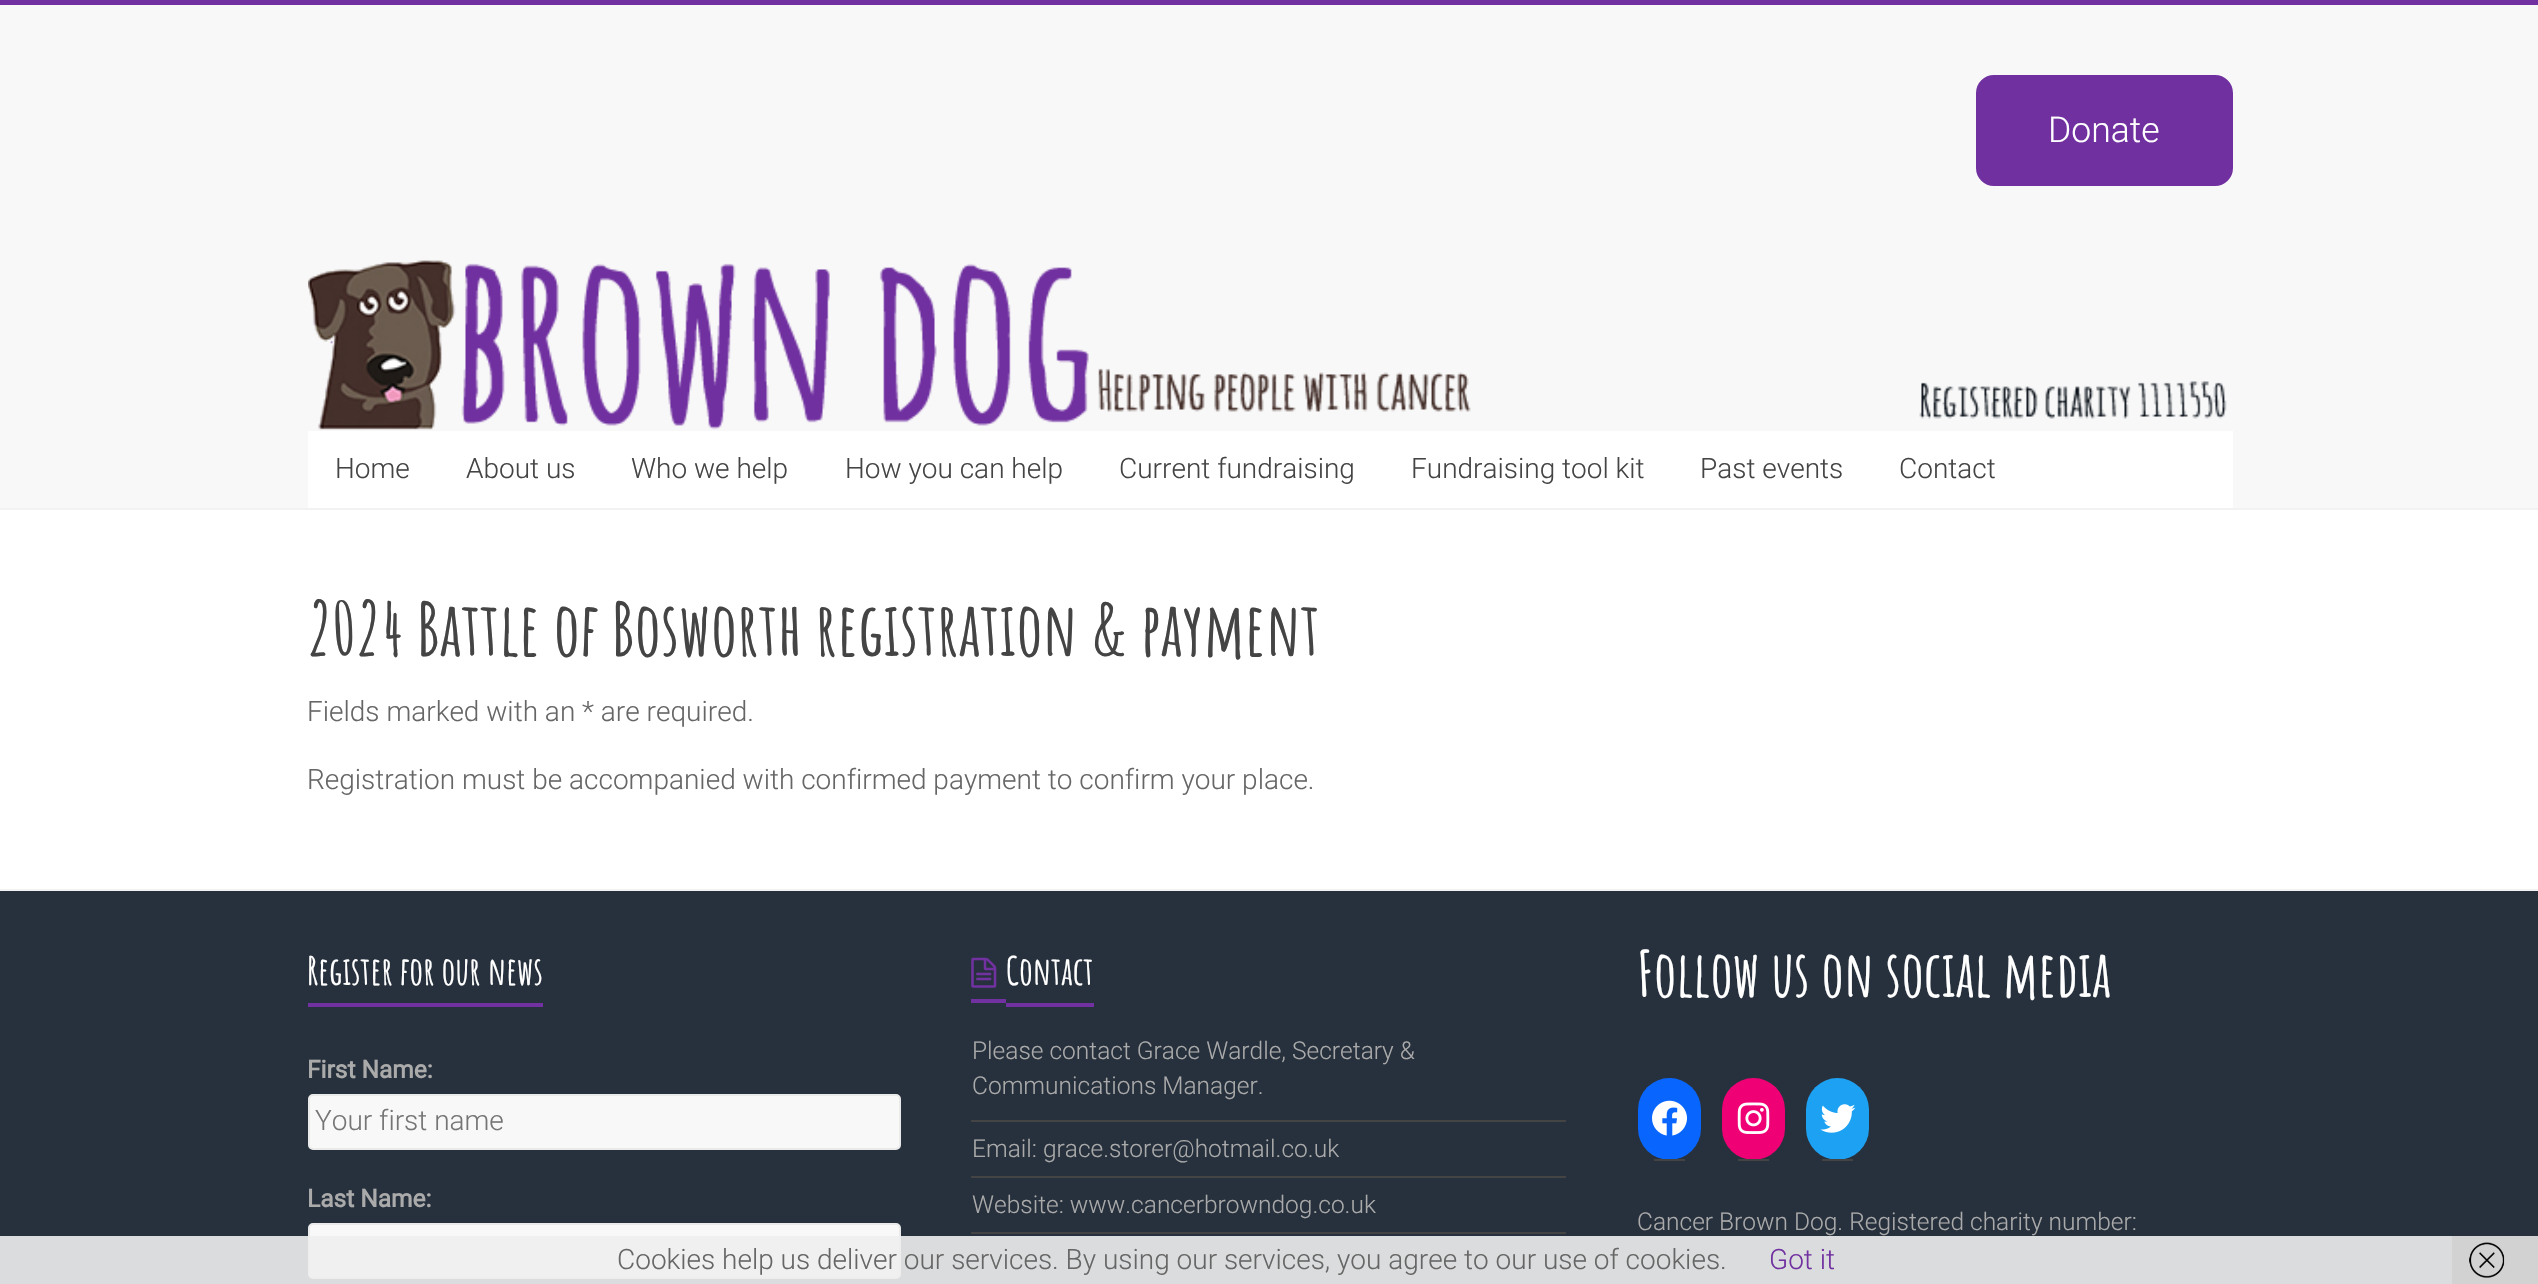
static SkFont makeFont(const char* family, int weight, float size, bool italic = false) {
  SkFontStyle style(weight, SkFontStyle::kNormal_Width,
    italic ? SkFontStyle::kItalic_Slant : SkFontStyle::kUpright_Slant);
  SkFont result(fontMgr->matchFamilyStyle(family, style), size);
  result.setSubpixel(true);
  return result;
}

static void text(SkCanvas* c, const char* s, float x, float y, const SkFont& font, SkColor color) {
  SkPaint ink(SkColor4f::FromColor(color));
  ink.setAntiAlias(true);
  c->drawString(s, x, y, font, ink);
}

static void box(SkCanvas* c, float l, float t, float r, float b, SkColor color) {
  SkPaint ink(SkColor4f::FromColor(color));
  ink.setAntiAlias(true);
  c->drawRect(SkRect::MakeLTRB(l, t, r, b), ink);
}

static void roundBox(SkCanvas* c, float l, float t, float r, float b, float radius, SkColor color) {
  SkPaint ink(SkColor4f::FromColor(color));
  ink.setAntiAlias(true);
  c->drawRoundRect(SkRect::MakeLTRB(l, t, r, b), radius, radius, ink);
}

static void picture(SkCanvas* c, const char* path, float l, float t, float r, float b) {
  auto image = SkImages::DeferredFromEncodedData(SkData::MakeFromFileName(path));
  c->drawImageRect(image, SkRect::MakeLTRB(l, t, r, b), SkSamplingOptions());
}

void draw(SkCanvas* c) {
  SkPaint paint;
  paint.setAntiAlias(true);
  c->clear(0xffffffff);
  box(c, 0, 0, 2538, 5, 0xff7131a1);
  box(c, 0, 5, 2538, 508, 0xfff8f8f8);
  box(c, 0, 508, 2538, 510, 0xfff2f2f2);
  paint.setColor(0xff7030a0);
  c->drawRoundRect(SkRect::MakeLTRB(1977, 76, 2232, 185), 17, 17, paint);
  paint.setStyle(SkPaint::kStroke_Style);
  paint.setStrokeWidth(2);
  c->drawRoundRect(SkRect::MakeLTRB(1977, 76, 2232, 185), 17, 17, paint);
  SkFont face1 = makeFont("Roboto", 300, 35.5f);
  text(c, "Donate", 2048, 142, face1, 0xffffffff);
  picture(c, "img_01.png", 308, 260, 2227, 430);
  box(c, 308, 431, 2233, 508, 0xffffffff);
  SkFont face2 = makeFont("Roboto", 300, 28);
  text(c, "Home", 335, 478, face2, 0xff444444);
  text(c, "About us", 466, 478, face2, 0xff444444);
  text(c, "Who we help", 631, 478, face2, 0xff444444);
  text(c, "How you can help", 845, 478, face2, 0xff444444);
  text(c, "Current fundraising", 1119, 478, face2, 0xff444444);
  text(c, "Fundraising tool kit", 1411, 478, face2, 0xff444444);
  text(c, "Past events", 1700, 478, face2, 0xff444444);
  text(c, "Contact", 1899, 478, face2, 0xff444444);
  SkFont face3 = makeFont("Amatic SC", 700, 73.5f);
  text(c, "2024 Battle of Bosworth registration & payment", 307, 656, face3, 0xff444444);
  text(c, "Fields marked with an * are required.", 307, 721, face2, 0xff666666);
  text(c, "Registration must be accompanied with confirmed payment to confirm your place.", 307, 789, face2, 0xff666666);
  box(c, 0, 891, 2538, 1284, 0xff27313d);
  box(c, 0, 889, 2538, 891, 0xfff2f2f2);
  SkFont face4 = makeFont("Amatic SC", 700, 38.5f);
  text(c, "Register for our news", 307, 985, face4, 0xffffffff);
  box(c, 308, 1003, 543, 1007, 0xff7131a1);
  SkFont face5 = makeFont("Roboto", 700, 24.5f);
  text(c, "First Name:", 307, 1078, face5, 0xffaaaaaa);
  paint.setStyle(SkPaint::kFill_Style);
  paint.setColor(0xfff8f8f8);
  c->drawRoundRect(SkRect::MakeLTRB(309, 1095, 900, 1149), 4, 4, paint);
  paint.setStyle(SkPaint::kStroke_Style);
  paint.setColor(0xffeaeaea);
  c->drawRoundRect(SkRect::MakeLTRB(309, 1095, 900, 1149), 4, 4, paint);
  text(c, "Your first name", 315, 1130, face2, 0xff757575);
  text(c, "Last Name:", 307, 1207, face5, 0xffaaaaaa);
  paint.setStyle(SkPaint::kFill_Style);
  paint.setColor(0xfff8f8f8);
  c->drawRoundRect(SkRect::MakeLTRB(309, 1224, 900, 1278), 4, 4, paint);
  paint.setStyle(SkPaint::kStroke_Style);
  paint.setColor(0xffeaeaea);
  c->drawRoundRect(SkRect::MakeLTRB(309, 1224, 900, 1278), 4, 4, paint);
  picture(c, "img_02.png", 971, 957, 997, 988);
  text(c, "Contact", 1006, 985, face4, 0xffffffff);
  box(c, 971, 999, 1006, 1003, 0xff7131a1);
  box(c, 1006, 1003, 1094, 1007, 0xff7131a1);
  SkFont face6 = makeFont("Roboto", 300, 24.5f);
  text(c, "Please contact Grace Wardle, Secretary &", 972, 1059, face6, 0xffaaaaaa);
  text(c, "Communications Manager.", 972, 1094, face6, 0xffaaaaaa);
  box(c, 971, 1120, 1566, 1122, 0xff444444);
  box(c, 971, 1176, 1566, 1178, 0xff444444);
  text(c, "Email: grace.storer@hotmail.co.uk", 972, 1157, face6, 0xffaaaaaa);
  box(c, 971, 1232, 1566, 1234, 0xff444444);
  text(c, "Website: www.cancerbrowndog.co.uk", 972, 1213, face6, 0xffaaaaaa);
  SkFont face7 = makeFont("Amatic SC", 700, 63);
  text(c, "Follow us on social media", 1637, 997, face7, 0xffffffff);
  roundBox(c, 1638, 1078, 1701, 1160, 31.5f, 0xff0866ff);
  box(c, 1654, 1159, 1685, 1161, 0xff444444);
  picture(c, "img_03.png", 1652, 1100, 1687, 1136);
  roundBox(c, 1722, 1078, 1785, 1160, 31.5f, 0xfff00075);
  box(c, 1738, 1159, 1769, 1161, 0xff444444);
  picture(c, "img_04.png", 1737, 1102, 1770, 1134);
  roundBox(c, 1806, 1078, 1869, 1160, 31.5f, 0xff1da1f2);
  box(c, 1822, 1159, 1853, 1161, 0xff444444);
  picture(c, "img_05.png", 1820, 1104, 1856, 1133);
  text(c, "Cancer Brown Dog. Registered charity number:", 1637, 1230, face6, 0xffaaaaaa);
  box(c, 0, 1236, 2452, 1284, 0xe6eeeeee);
  text(c, "Cookies help us deliver our services. By using our services, you agree to our use of cookies.", 617, 1269, face2, 0xff666666);
  text(c, "Got it", 1769, 1269, face2, 0xff7131a1);
  box(c, 2452, 1236, 2538, 1284, 0xffd2d2d3);
  picture(c, "img_06.png", 2469, 1242, 2505, 1278);
}
